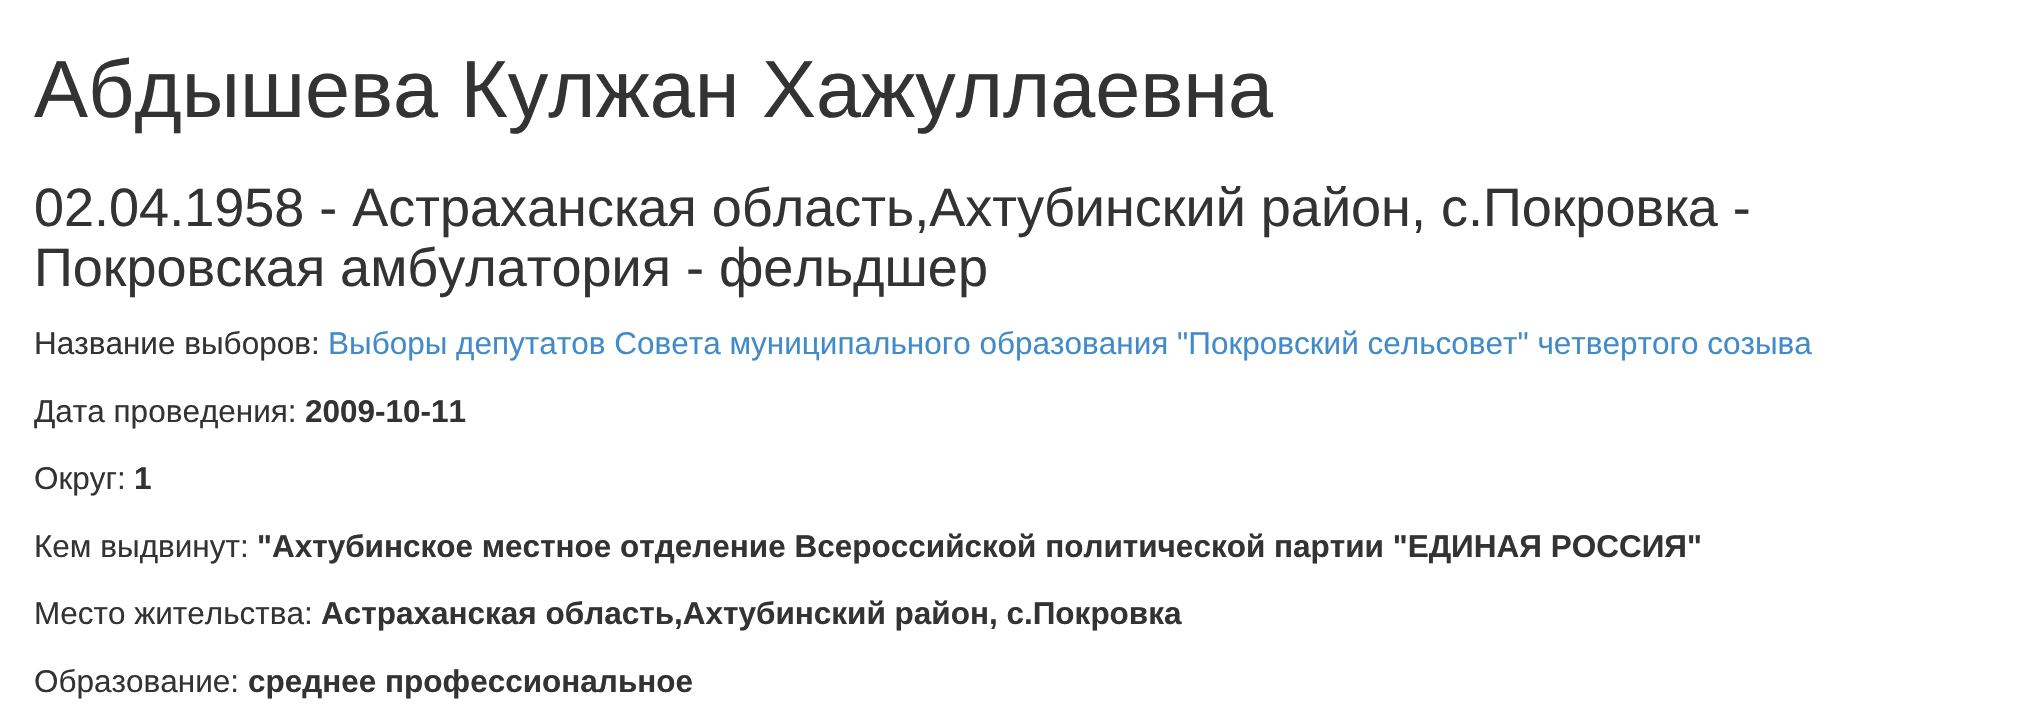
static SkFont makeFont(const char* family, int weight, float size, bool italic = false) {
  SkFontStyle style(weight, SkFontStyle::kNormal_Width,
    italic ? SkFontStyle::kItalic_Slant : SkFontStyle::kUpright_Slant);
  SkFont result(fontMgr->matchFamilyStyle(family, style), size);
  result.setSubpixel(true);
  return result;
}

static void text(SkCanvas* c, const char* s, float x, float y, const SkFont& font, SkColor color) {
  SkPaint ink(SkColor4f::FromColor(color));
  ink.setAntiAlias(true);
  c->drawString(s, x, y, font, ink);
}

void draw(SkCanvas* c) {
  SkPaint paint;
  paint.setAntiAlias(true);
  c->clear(0xffffffff);
  SkFont face1 = makeFont("Liberation Sans", 400, 81);
  text(c, "Абдышева Кулжан Хажуллаевна", 34, 117, face1, 0xff333333);
  SkFont face2 = makeFont("Liberation Sans", 400, 54);
  text(c, "02.04.1958 - Астраханская область,Ахтубинский район, с.Покровка -", 34, 226, face2, 0xff333333);
  text(c, "Покровская амбулатория - фельдшер", 34, 286, face2, 0xff333333);
  SkFont face3 = makeFont("Liberation Sans", 400, 31.5f);
  text(c, "Название выборов:", 34, 354, face3, 0xff333333);
  text(c, "Выборы депутатов Совета муниципального образования \"Покровский сельсовет\" четвертого созыва", 328, 354, face3, 0xff428bca);
  text(c, "Дата проведения:", 34, 422, face3, 0xff333333);
  SkFont face4 = makeFont("Liberation Sans", 700, 31.5f);
  text(c, "2009-10-11", 305, 422, face4, 0xff333333);
  text(c, "Округ:", 34, 489, face3, 0xff333333);
  text(c, "1", 134, 489, face4, 0xff333333);
  text(c, "Кем выдвинут:", 34, 557, face3, 0xff333333);
  text(c, "\"Ахтубинское местное отделение Всероссийской политической партии \"ЕДИНАЯ РОССИЯ\"", 257, 557, face4, 0xff333333);
  text(c, "Место жительства:", 34, 624, face3, 0xff333333);
  text(c, "Астраханская область,Ахтубинский район, с.Покровка", 321, 624, face4, 0xff333333);
  text(c, "Образование:", 34, 692, face3, 0xff333333);
  text(c, "среднее профессиональное", 248, 692, face4, 0xff333333);
}
